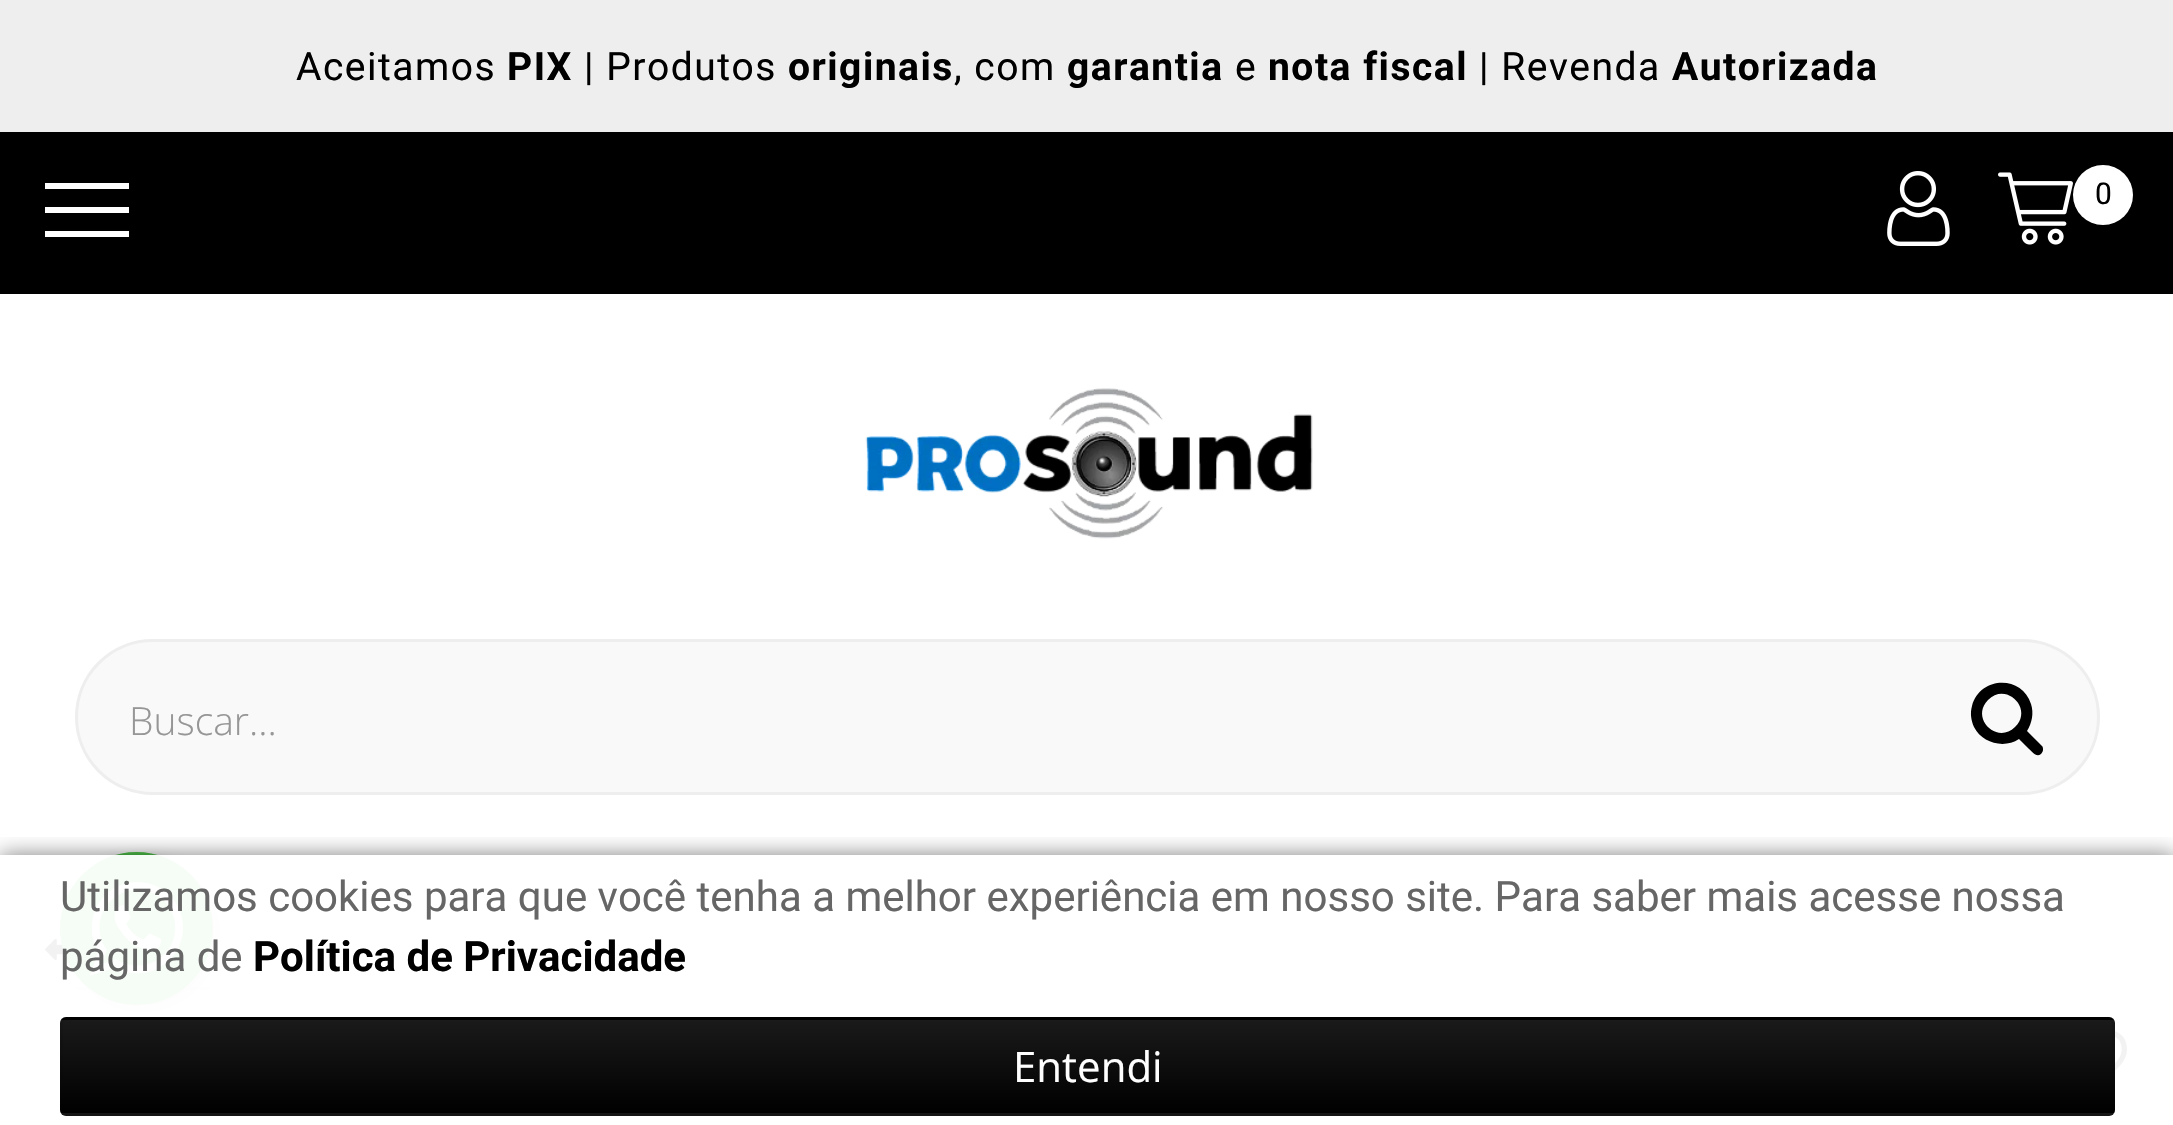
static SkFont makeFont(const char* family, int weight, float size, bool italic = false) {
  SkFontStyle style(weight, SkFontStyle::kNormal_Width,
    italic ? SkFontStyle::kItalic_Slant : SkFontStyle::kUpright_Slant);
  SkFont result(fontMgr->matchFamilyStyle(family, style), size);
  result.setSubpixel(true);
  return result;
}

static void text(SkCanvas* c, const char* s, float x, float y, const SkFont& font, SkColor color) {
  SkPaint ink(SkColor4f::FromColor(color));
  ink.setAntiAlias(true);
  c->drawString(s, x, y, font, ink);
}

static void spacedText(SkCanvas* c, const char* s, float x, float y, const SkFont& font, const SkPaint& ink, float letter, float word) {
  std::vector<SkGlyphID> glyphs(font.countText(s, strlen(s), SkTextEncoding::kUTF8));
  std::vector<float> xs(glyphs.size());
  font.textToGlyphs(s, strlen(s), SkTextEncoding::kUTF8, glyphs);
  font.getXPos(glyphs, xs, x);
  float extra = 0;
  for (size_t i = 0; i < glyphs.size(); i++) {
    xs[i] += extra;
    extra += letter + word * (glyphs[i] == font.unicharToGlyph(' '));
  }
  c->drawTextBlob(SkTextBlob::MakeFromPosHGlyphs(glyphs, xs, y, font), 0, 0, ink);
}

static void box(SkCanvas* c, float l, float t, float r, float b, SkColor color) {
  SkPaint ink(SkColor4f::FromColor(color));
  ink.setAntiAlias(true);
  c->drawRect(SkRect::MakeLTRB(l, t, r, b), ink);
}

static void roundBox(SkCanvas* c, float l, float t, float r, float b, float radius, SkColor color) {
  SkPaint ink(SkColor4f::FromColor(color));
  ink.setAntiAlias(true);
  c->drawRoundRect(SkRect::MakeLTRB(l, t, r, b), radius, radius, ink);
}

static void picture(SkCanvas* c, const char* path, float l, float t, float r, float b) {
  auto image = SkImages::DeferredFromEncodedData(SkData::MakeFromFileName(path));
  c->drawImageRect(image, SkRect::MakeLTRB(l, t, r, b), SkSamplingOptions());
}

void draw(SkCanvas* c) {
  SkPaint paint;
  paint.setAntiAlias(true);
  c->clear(0xffffffff);
  box(c, 0, 0, 2173, 132, 0xffeeeeee);
  SkFont face1 = makeFont("Roboto", 400, 39);
  paint.setColor(0xff000000);
  spacedText(c, "Aceitamos", 296, 80, face1, paint, 1.5f, 0);
  SkFont face2 = makeFont("Roboto", 700, 39);
  spacedText(c, "PIX", 507, 80, face2, paint, 1.5f, 0);
  spacedText(c, "| Produtos", 584, 80, face1, paint, 1.5f, 0);
  spacedText(c, "originais", 788, 80, face2, paint, 1.5f, 0);
  spacedText(c, ", com", 954, 80, face1, paint, 1.5f, 0);
  spacedText(c, "garantia", 1067, 80, face2, paint, 1.5f, 0);
  spacedText(c, "e", 1235, 80, face1, paint, 1.5f, 0);
  spacedText(c, "nota fiscal", 1268, 80, face2, paint, 1.5f, 0);
  spacedText(c, "| Revenda", 1479, 80, face1, paint, 1.5f, 0);
  spacedText(c, "Autorizada", 1672, 80, face2, paint, 1.5f, 0);
  picture(c, "img_01.png", 865, 388, 1313, 539);
  paint.setColor(0xfff9f9f9);
  c->drawRoundRect(SkRect::MakeLTRB(76.5f, 640.5f, 2098.5f, 793.5f), 76.5f, 76.5f, paint);
  paint.setStyle(SkPaint::kStroke_Style);
  paint.setStrokeWidth(3);
  paint.setColor(0xffeeeeee);
  c->drawRoundRect(SkRect::MakeLTRB(76.5f, 640.5f, 2098.5f, 793.5f), 76.5f, 76.5f, paint);
  SkFont face3 = makeFont("Open Sans", 300, 39);
  text(c, "Buscar...", 129, 735, face3, 0xff969696);
  paint.setStyle(SkPaint::kFill_Style);
  paint.setColor(0xff000000);
  c->drawPath(SkPathBuilder().moveTo(2015, 727).cubicTo(2034, 709, 2006, 681, 1988, 700).cubicTo(1970, 718, 1997, 745, 2015, 727).close().moveTo(2043, 750).cubicTo(2043, 751, 2042, 753, 2041, 754).cubicTo(2036, 758, 2032, 751, 2029, 749).lineTo(2019, 739).cubicTo(2004, 749, 1982, 743, 1974, 727).cubicTo(1971, 720, 1970, 713, 1972, 706).cubicTo(1980, 676, 2022, 675, 2031, 704).cubicTo(2034, 713, 2032, 723, 2027, 731).lineTo(2042, 746).cubicTo(2043, 747, 2043, 748, 2043, 750).close().detach(), paint);
  box(c, 45, 987, 2130, 990, 0xffefefef);
  picture(c, "img_02.png", 45, 938, 65, 961);
  picture(c, "img_03.png", 2115, 1031, 2127, 1071);
  paint.setColor(0x2e000000);
  paint.setMaskFilter(SkMaskFilter::MakeBlur(kNormal_SkBlurStyle, 6));
  c->drawRoundRect(SkRect::MakeLTRB(66, 858, 219, 1011), 76.5f, 76.5f, paint);
  paint.setMaskFilter(nullptr);
  paint.setColor(0xff4dc247);
  c->drawCircle(136.5f, 928.5f, 76.5f, paint);
  picture(c, "img_06.png", 90, 882, 183, 976);
  c->save();
  c->clipRect(SkRect::MakeLTRB(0, 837, 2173, 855));
  paint.setColor(0x80000000);
  paint.setMaskFilter(SkMaskFilter::MakeBlur(kNormal_SkBlurStyle, 10.5f));
  c->drawRect(SkRect::MakeLTRB(0, 855, 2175, 1125), paint);
  paint.setMaskFilter(nullptr);
  c->restore();
  box(c, 45, 855, 2130, 1071, 0xf2ffffff);
  SkFont face4 = makeFont("Roboto", 400, 42);
  text(c, "Utilizamos cookies para que você tenha a melhor experiência em nosso site. Para saber mais acesse nossa", 60, 911, face4, 0xff666666);
  text(c, "página de", 60, 971, face4, 0xff666666);
  SkFont face5 = makeFont("Roboto", 700, 42);
  text(c, "Política de Privacidade", 253, 971, face5, 0xff000000);
  roundBox(c, 60, 1017, 2115, 1116, 6, 0xff000000);
  c->save();
  c->clipPath(SkPathBuilder().moveTo(66, 1017).lineTo(2109, 1017).cubicTo(2112.5f, 1017, 2115, 1019.5f, 2115, 1023).lineTo(2115, 1110).cubicTo(2115, 1113.5f, 2112.5f, 1116, 2109, 1116).lineTo(66, 1116).cubicTo(62.5f, 1116, 60, 1113.5f, 60, 1110).lineTo(60, 1023).cubicTo(60, 1019.5f, 62.5f, 1017, 66, 1017).close().detach(), true);
  {
    const SkColor colors[] = {0x1affffff, 0x1a000000};
    const float stops[] = {0, 1};
    const SkPoint ends[] = {{1088, 927}, {1088, 1020}};
    paint.setShader(SkGradientShader::MakeLinear(ends, colors, stops, 2, SkTileMode::kClamp));
    paint.setAlpha(255);
  }
  c->drawRect(SkRect::MakeLTRB(60, 1017, 2115, 1020), paint);
  c->restore();
  {
    const SkColor colors[] = {0x1affffff, 0x1a000000};
    const float stops[] = {0, 1};
    const SkPoint ends[] = {{1088, 1020}, {1088, 1113}};
    paint.setShader(SkGradientShader::MakeLinear(ends, colors, stops, 2, SkTileMode::kClamp));
    paint.setAlpha(255);
  }
  c->drawRect(SkRect::MakeLTRB(60, 1020, 2115, 1113), paint);
  c->save();
  c->clipPath(SkPathBuilder().moveTo(66, 1017).lineTo(2109, 1017).cubicTo(2112.5f, 1017, 2115, 1019.5f, 2115, 1023).lineTo(2115, 1110).cubicTo(2115, 1113.5f, 2112.5f, 1116, 2109, 1116).lineTo(66, 1116).cubicTo(62.5f, 1116, 60, 1113.5f, 60, 1110).lineTo(60, 1023).cubicTo(60, 1019.5f, 62.5f, 1017, 66, 1017).close().detach(), true);
  {
    const SkColor colors[] = {0x1affffff, 0x1a000000};
    const float stops[] = {0, 1};
    const SkPoint ends[] = {{1088, 1113}, {1088, 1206}};
    paint.setShader(SkGradientShader::MakeLinear(ends, colors, stops, 2, SkTileMode::kClamp));
    paint.setAlpha(255);
  }
  c->drawRect(SkRect::MakeLTRB(60, 1113, 2115, 1116), paint);
  c->restore();
  paint.setStyle(SkPaint::kStroke_Style);
  paint.setShader(nullptr);
  paint.setColor(0x33000000);
  c->drawPath(SkPathBuilder().moveTo(2112, 1113).lineTo(2109, 1114.5f).lineTo(66, 1114.5f).lineTo(63, 1113).detach(), paint);
  paint.setColor(0x1a000000);
  c->drawPath(SkPathBuilder().moveTo(63, 1113).cubicTo(62, 1112.5f, 61.5f, 1111, 61.5f, 1110).lineTo(61.5f, 1023).cubicTo(61.5f, 1022, 62, 1020.5f, 63, 1020).cubicTo(63.5f, 1019, 65, 1018.5f, 66, 1018.5f).lineTo(2109, 1018.5f).cubicTo(2110, 1018.5f, 2111.5f, 1019, 2112, 1020).cubicTo(2113, 1020.5f, 2113.5f, 1022, 2113.5f, 1023).lineTo(2113.5f, 1110).cubicTo(2113.5f, 1111, 2113, 1112.5f, 2112, 1113).detach(), paint);
  SkFont face6 = makeFont("Open Sans", 400, 42);
  text(c, "Entendi", 1013, 1082, face6, 0xffffffff);
  box(c, 0, 132, 2173, 294, 0xff000000);
  picture(c, "img_04.png", 1887, 171, 1950, 246);
  picture(c, "img_05.png", 1998, 172, 2073, 245);
  paint.setStyle(SkPaint::kFill_Style);
  paint.setColor(0xffffffff);
  c->drawCircle(2103, 195, 30, paint);
  SkFont face7 = makeFont("Roboto", 400, 30);
  text(c, "0", 2095, 204, face7, 0xff000000);
  box(c, 45, 183, 129, 189, 0xffffffff);
  box(c, 45, 207, 129, 213, 0xffffffff);
  box(c, 45, 231, 129, 237, 0xffffffff);
}
